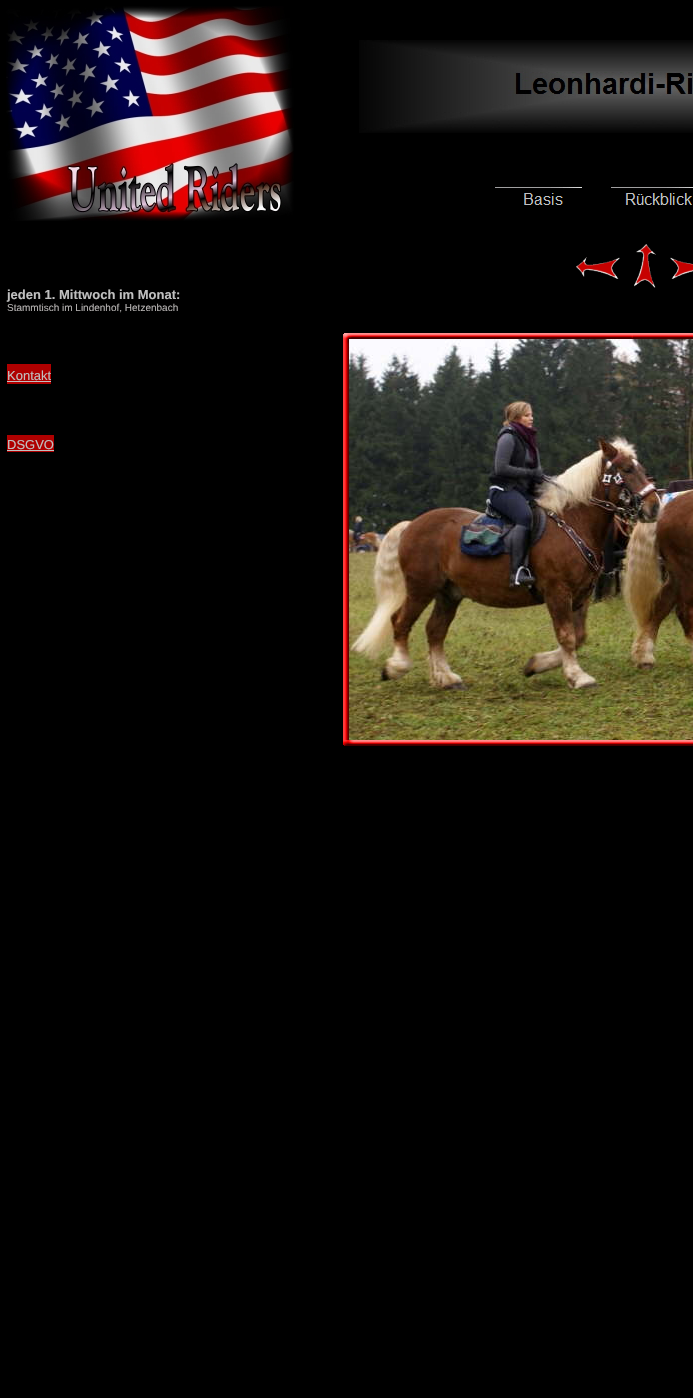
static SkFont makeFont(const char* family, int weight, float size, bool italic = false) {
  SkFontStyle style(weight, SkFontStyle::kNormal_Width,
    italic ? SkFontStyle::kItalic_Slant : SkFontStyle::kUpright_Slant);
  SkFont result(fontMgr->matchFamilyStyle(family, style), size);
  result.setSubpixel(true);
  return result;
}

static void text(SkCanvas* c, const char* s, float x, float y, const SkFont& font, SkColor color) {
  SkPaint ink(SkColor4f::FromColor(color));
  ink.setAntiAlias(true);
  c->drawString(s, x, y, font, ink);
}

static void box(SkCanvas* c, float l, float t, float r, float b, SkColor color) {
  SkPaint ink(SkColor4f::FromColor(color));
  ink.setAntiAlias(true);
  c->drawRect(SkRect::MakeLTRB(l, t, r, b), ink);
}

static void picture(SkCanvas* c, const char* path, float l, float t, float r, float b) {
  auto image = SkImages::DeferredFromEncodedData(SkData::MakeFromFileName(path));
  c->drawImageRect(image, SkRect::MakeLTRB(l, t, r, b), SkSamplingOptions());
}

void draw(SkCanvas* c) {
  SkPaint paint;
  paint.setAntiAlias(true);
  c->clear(0xff000000);
  picture(c, "img_01.png", 6, 6, 294, 221);
  SkFont face1 = makeFont("Liberation Sans", 700, 13);
  text(c, "jeden 1. Mittwoch im Monat:", 7, 299, face1, 0xffc0c0c0);
  SkFont face2 = makeFont("Liberation Sans", 400, 10);
  text(c, "Stammtisch im Lindenhof, Hetzenbach", 7, 311, face2, 0xffb7b4b3);
  box(c, 7, 364, 51, 384, 0xffaf0000);
  SkFont face3 = makeFont("Liberation Sans", 400, 13);
  text(c, "Kontakt", 7, 380, face3, 0xffc0c0c0);
  box(c, 7, 381, 51, 382, 0xffc0c0c0);
  box(c, 7, 435, 54, 452, 0xffaf0000);
  text(c, "DSGVO", 7, 449, face3, 0xffc0c0c0);
  box(c, 7, 450, 54, 451, 0xffc0c0c0);
  picture(c, "img_02.png", 359, 40, 693, 133);
  picture(c, "img_03.png", 495, 187, 582, 205);
  picture(c, "img_04.png", 611, 187, 693, 205);
  picture(c, "img_05.png", 634, 244, 656, 288);
  picture(c, "img_06.png", 576, 257, 620, 279);
  picture(c, "img_07.png", 670, 257, 693, 279);
  picture(c, "img_08.png", 343, 333, 349, 339);
  picture(c, "img_09.png", 349, 333, 693, 339);
  picture(c, "img_10.png", 343, 339, 349, 740);
  picture(c, "img_11.png", 349, 339, 693, 740);
  picture(c, "img_12.png", 343, 740, 349, 746);
  picture(c, "img_13.png", 349, 740, 693, 746);
}
